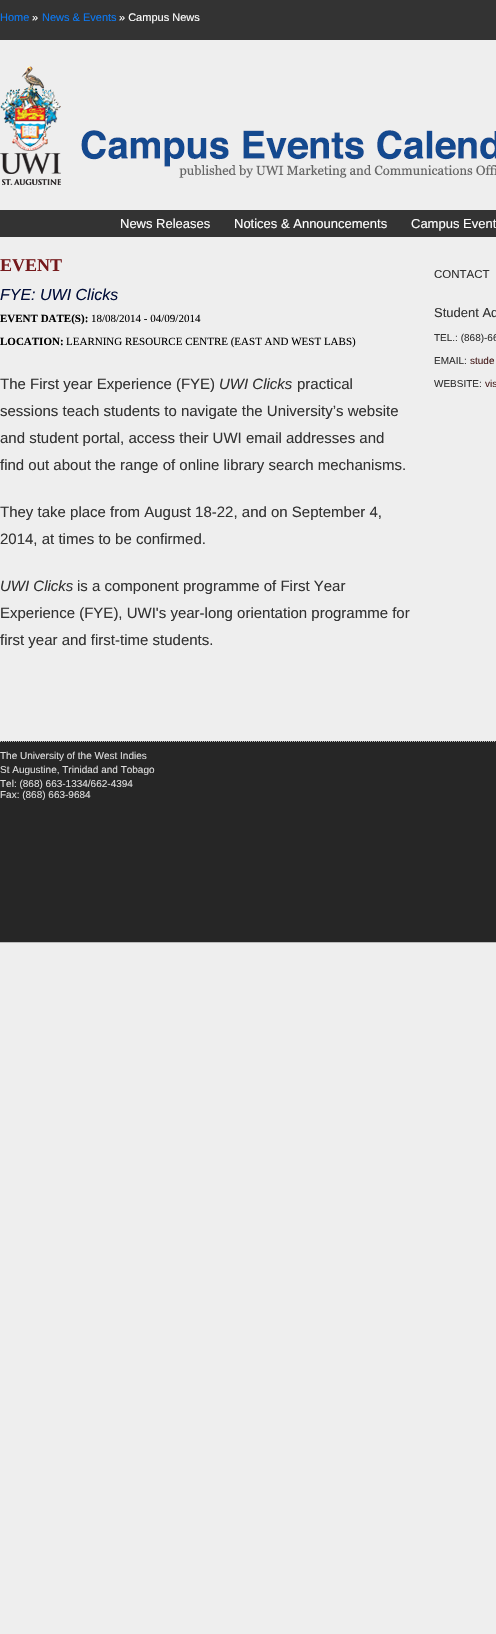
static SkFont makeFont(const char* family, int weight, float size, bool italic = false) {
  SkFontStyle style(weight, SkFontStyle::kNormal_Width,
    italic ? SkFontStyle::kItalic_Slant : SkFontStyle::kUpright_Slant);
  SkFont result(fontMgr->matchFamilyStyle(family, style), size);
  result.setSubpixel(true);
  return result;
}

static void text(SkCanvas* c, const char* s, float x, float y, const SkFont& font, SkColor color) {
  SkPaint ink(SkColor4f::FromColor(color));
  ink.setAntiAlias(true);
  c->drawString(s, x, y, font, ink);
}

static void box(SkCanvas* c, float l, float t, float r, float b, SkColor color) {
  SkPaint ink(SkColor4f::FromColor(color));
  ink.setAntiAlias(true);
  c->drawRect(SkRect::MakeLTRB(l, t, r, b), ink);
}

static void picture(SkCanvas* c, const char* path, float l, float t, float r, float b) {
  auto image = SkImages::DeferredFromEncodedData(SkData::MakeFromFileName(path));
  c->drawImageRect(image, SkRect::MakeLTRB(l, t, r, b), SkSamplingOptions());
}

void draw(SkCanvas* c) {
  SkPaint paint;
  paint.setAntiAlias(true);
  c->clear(0xffeeeeee);
  box(c, 0, 0, 496, 40, 0xff333333);
  SkFont face1 = makeFont("Liberation Sans", 400, 11);
  text(c, "Home", 0, 21, face1, 0xff0b79f4);
  text(c, "»", 32, 21, face1, 0xffffffff);
  text(c, "News & Events", 42, 21, face1, 0xff0b79f4);
  text(c, "» Campus News", 119, 21, face1, 0xffffffff);
  picture(c, "img_01.png", 0, 66, 61, 185);
  picture(c, "img_02.png", 81, 130, 496, 178);
  box(c, 0, 210, 496, 237, 0xff333333);
  SkFont face2 = makeFont("Liberation Sans", 400, 13);
  text(c, "News Releases", 120, 228, face2, 0xffffffff);
  text(c, "Notices & Announcements", 234, 228, face2, 0xffffffff);
  text(c, "Campus Event", 411, 228, face2, 0xffffffff);
  SkFont face3 = makeFont("Liberation Serif", 700, 18);
  text(c, "EVENT", 0, 271, face3, 0xff75191c);
  SkFont face4 = makeFont("Liberation Sans", 400, 16, true);
  text(c, "FYE: UWI Clicks", 0, 300, face4, 0xff020e39);
  SkFont face5 = makeFont("Liberation Serif", 700, 11);
  text(c, "EVENT DATE(S):", 0, 322, face5, 0xff000000);
  SkFont face6 = makeFont("Liberation Serif", 400, 11);
  text(c, "18/08/2014 - 04/09/2014", 91, 322, face6, 0xff000000);
  text(c, "LOCATION:", 0, 345, face5, 0xff000000);
  text(c, "LEARNING RESOURCE CENTRE (EAST AND WEST LABS)", 66, 345, face6, 0xff000000);
  SkFont face7 = makeFont("Liberation Sans", 400, 15);
  text(c, "The First year Experience (FYE)", 0, 389, face7, 0xff333333);
  SkFont face8 = makeFont("Liberation Sans", 400, 15, true);
  text(c, "UWI Clicks", 219, 389, face8, 0xff333333);
  text(c, "practical", 297, 389, face7, 0xff333333);
  text(c, "sessions teach students to navigate the University’s website", 0, 416, face7, 0xff333333);
  text(c, "and student portal, access their UWI email addresses and", 0, 443, face7, 0xff333333);
  text(c, "find out about the range of online library search mechanisms.", 0, 470, face7, 0xff333333);
  text(c, "They take place from August 18-22, and on September 4,", 0, 517, face7, 0xff333333);
  text(c, "2014, at times to be confirmed.", 0, 544, face7, 0xff333333);
  text(c, "UWI Clicks", 0, 591, face8, 0xff333333);
  text(c, "is a component programme of First Year", 77, 591, face7, 0xff333333);
  text(c, "Experience (FYE), UWI's year-long orientation programme for", 0, 618, face7, 0xff333333);
  text(c, "first year and first-time students.", 0, 645, face7, 0xff333333);
  SkFont face9 = makeFont("Liberation Sans", 400, 11.5f);
  text(c, "CONTACT", 434, 278, face9, 0xff333333);
  text(c, "Student Ad", 434, 317, face2, 0xff333333);
  SkFont face10 = makeFont("Liberation Sans", 400, 10);
  text(c, "TEL.: (868)-66", 434, 341, face10, 0xff333333);
  text(c, "EMAIL:", 434, 364, face10, 0xff333333);
  text(c, "stude", 470, 364, face10, 0xff461d1c);
  text(c, "WEBSITE:", 434, 387, face10, 0xff333333);
  text(c, "vis", 485, 387, face10, 0xff461d1c);
  box(c, 0, 741, 496, 942, 0xff262626);
  paint.setStyle(SkPaint::kStroke_Style);
  paint.setStrokeWidth(1);
  paint.setColor(0xffbbbbbb);
  paint.setPathEffect(SkDashPathEffect::Make({{1, 1}}, 0));
  c->drawPath(SkPathBuilder().moveTo(0, 741.5f).lineTo(496, 741.5f).detach(), paint);
  paint.setPathEffect(nullptr);
  box(c, 0, 942, 496, 943, 0xffbbbbbb);
  text(c, "The University of the West Indies", 0, 759, face10, 0xffdddddd);
  text(c, "St Augustine, Trinidad and Tobago", 0, 773, face10, 0xffdddddd);
  text(c, "Tel: (868) 663-1334/662-4394", 0, 787, face10, 0xffdddddd);
  text(c, "Fax: (868) 663-9684", 0, 798, face10, 0xffdddddd);
}
